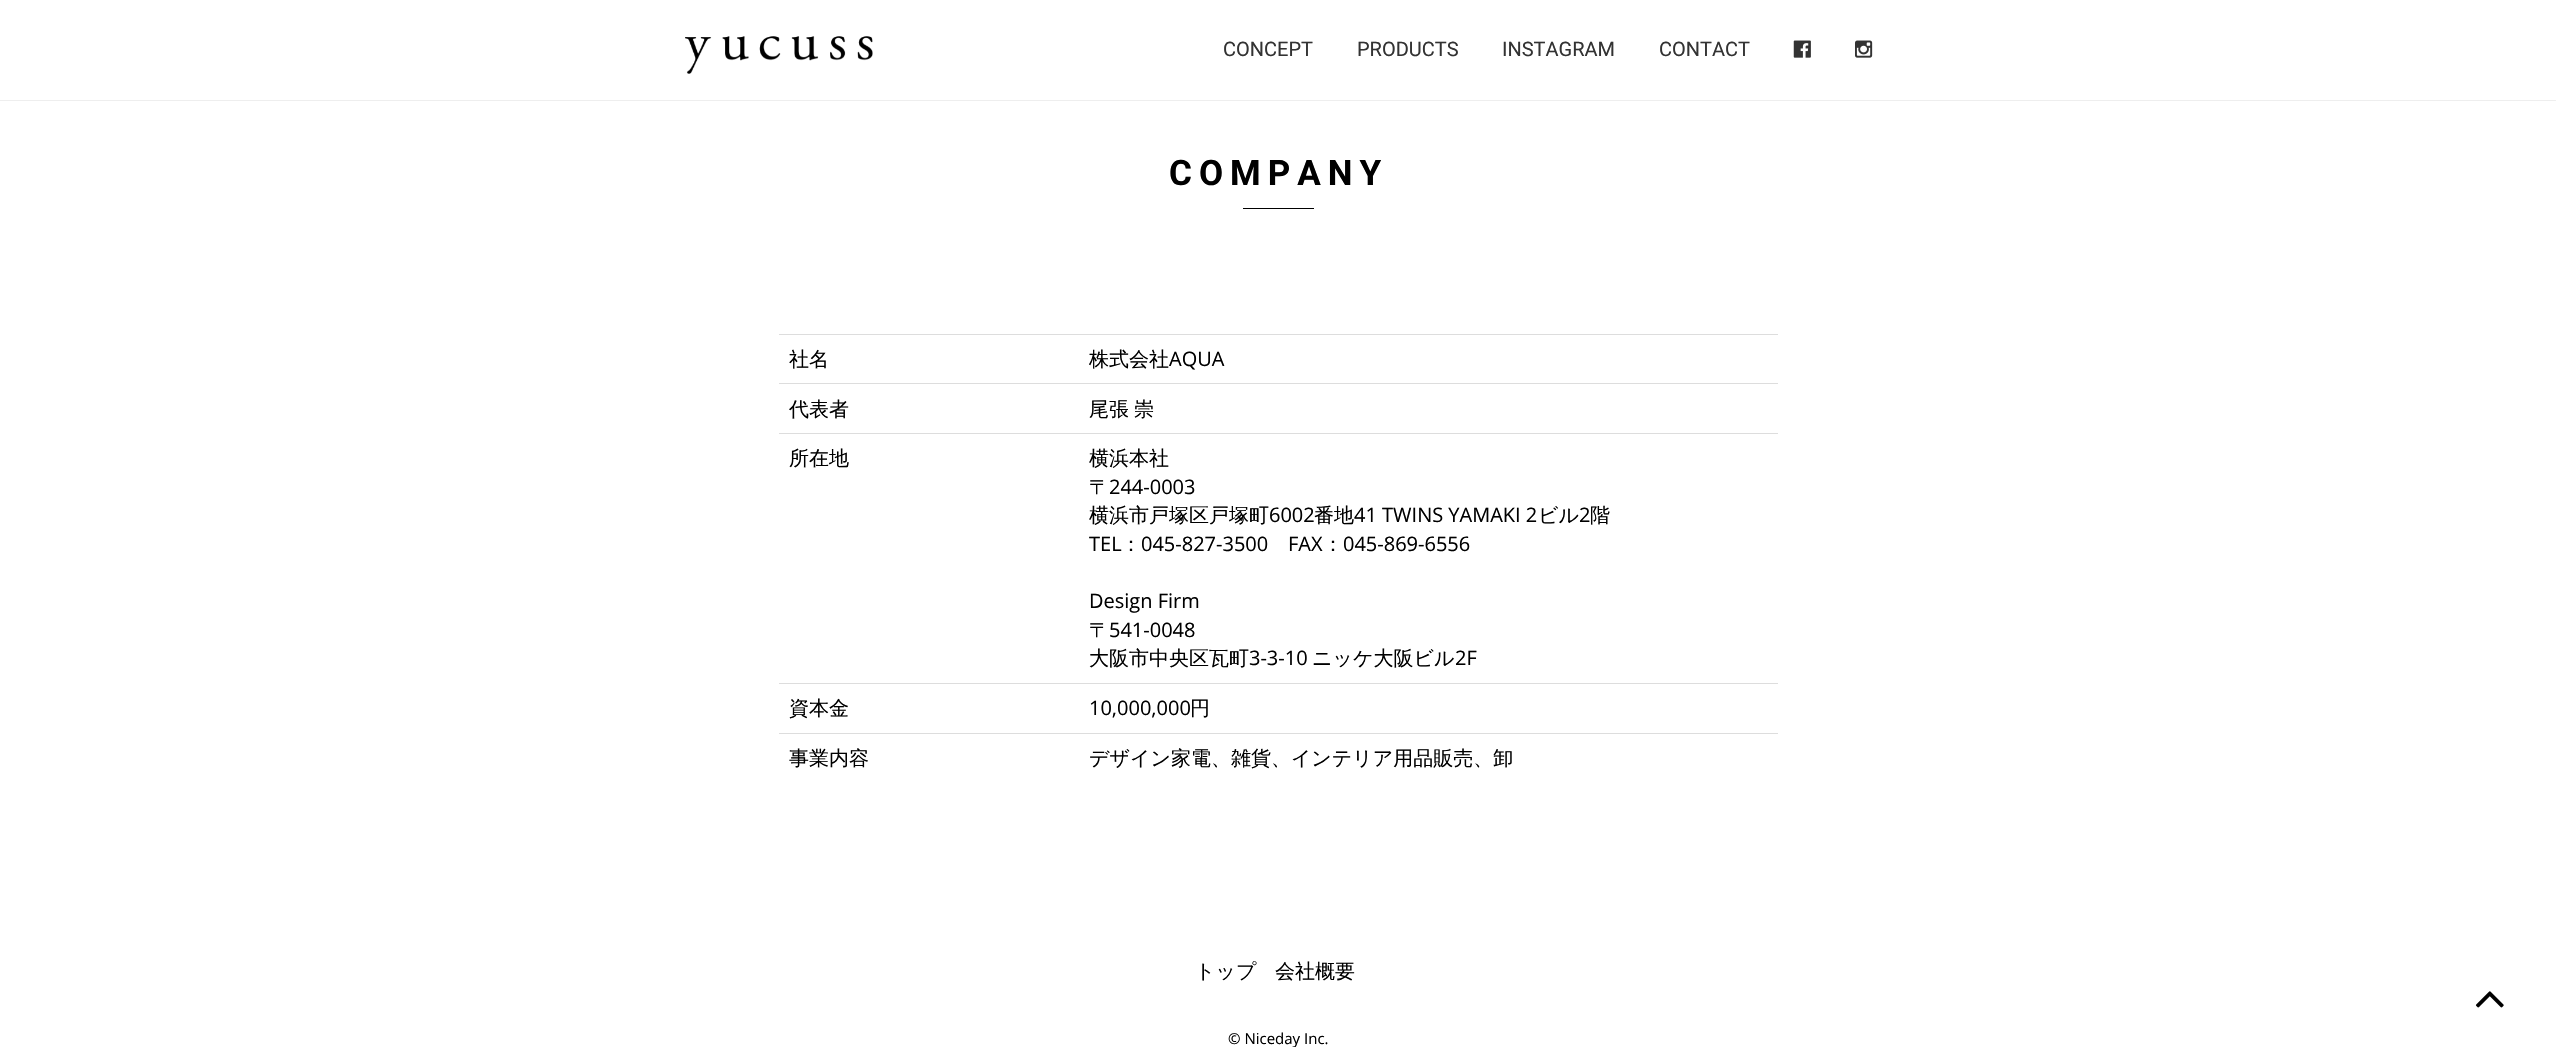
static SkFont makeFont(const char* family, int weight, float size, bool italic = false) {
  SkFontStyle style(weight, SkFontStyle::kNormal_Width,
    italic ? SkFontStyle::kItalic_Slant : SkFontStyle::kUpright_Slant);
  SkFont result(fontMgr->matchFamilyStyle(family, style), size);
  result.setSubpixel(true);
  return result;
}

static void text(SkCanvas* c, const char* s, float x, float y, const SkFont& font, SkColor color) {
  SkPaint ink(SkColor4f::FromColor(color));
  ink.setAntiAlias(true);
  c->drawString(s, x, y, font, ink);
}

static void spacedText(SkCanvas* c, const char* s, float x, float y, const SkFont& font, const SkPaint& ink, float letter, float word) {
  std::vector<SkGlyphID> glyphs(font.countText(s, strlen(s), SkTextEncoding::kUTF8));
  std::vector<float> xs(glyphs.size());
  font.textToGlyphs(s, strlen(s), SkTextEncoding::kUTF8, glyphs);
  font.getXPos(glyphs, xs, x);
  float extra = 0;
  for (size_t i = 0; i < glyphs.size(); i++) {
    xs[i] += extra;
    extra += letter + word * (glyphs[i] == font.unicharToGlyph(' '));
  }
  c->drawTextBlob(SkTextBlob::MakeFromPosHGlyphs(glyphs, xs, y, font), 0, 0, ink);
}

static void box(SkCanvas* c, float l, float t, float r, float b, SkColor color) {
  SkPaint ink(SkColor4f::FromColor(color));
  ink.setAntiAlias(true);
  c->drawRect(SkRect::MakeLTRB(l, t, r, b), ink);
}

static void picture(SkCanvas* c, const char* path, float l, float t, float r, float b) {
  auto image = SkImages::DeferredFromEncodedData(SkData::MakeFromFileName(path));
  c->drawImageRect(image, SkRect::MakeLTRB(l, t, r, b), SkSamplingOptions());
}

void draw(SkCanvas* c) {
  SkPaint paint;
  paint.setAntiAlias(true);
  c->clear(0xffffffff);
  box(c, 0, 100, 2556, 101, 0xffeeeeee);
  picture(c, "img_01.png", 685, 36, 873, 74);
  SkFont face1 = makeFont("Roboto", 400, 20);
  text(c, "CONCEPT", 1223, 56, face1, 0xff333333);
  text(c, "PRODUCTS", 1357, 56, face1, 0xff333333);
  text(c, "INSTAGRAM", 1502, 56, face1, 0xff333333);
  text(c, "CONTACT", 1659, 56, face1, 0xff333333);
  picture(c, "img_02.png", 1793, 40, 1811, 58);
  picture(c, "img_03.png", 1855, 40, 1873, 58);
  SkFont face2 = makeFont("Roboto", 700, 35);
  paint.setColor(0xff000000);
  spacedText(c, "COMPANY", 1169, 185, face2, paint, 7, 0);
  box(c, 1243, 208, 1314, 209, 0xff000000);
  SkFont face3 = makeFont("WenQuanYi Zen Hei", 500, 20);
  text(c, "社名", 789, 366, face3, 0xff000000);
  box(c, 779, 334, 1778, 335, 0xffdddddd);
  text(c, "株式会社", 1089, 366, face3, 0xff000000);
  SkFont face4 = makeFont("Open Sans", 400, 20);
  text(c, "AQUA", 1169, 366, face4, 0xff000000);
  text(c, "代表者", 789, 416, face3, 0xff000000);
  box(c, 779, 383, 1778, 384, 0xffdddddd);
  spacedText(c, "尾張 崇", 1089, 416, face3, paint, 0, -1);
  text(c, "所在地", 789, 465, face3, 0xff000000);
  box(c, 779, 433, 1778, 434, 0xffdddddd);
  text(c, "横浜本社", 1089, 465, face3, 0xff000000);
  text(c, "〒", 1089, 494, face3, 0xff000000);
  text(c, "244-0003", 1109, 494, face4, 0xff000000);
  text(c, "横浜市戸塚区戸塚町", 1089, 522, face3, 0xff000000);
  text(c, "6002", 1269, 522, face4, 0xff000000);
  text(c, "番地", 1314, 522, face3, 0xff000000);
  text(c, "41 TWINS YAMAKI 2", 1354, 522, face4, 0xff000000);
  text(c, "ビル", 1538, 522, face3, 0xff000000);
  text(c, "2", 1579, 522, face4, 0xff000000);
  text(c, "階", 1590, 522, face3, 0xff000000);
  text(c, "TEL", 1089, 551, face4, 0xff000000);
  text(c, "：", 1121, 551, face3, 0xff000000);
  text(c, "045-827-3500", 1141, 551, face4, 0xff000000);
  text(c, "FAX", 1288, 551, face4, 0xff000000);
  text(c, "：", 1323, 551, face3, 0xff000000);
  text(c, "045-869-6556", 1343, 551, face4, 0xff000000);
  text(c, "Design Firm", 1089, 608, face4, 0xff000000);
  text(c, "〒", 1089, 637, face3, 0xff000000);
  text(c, "541-0048", 1109, 637, face4, 0xff000000);
  text(c, "大阪市中央区瓦町", 1089, 665, face3, 0xff000000);
  text(c, "3-3-10", 1249, 665, face4, 0xff000000);
  text(c, "ニッケ大阪ビル", 1312, 665, face3, 0xff000000);
  text(c, "2F", 1455, 665, face4, 0xff000000);
  text(c, "資本金", 789, 715, face3, 0xff000000);
  box(c, 779, 683, 1778, 684, 0xffdddddd);
  text(c, "10,000,000", 1089, 715, face4, 0xff000000);
  text(c, "円", 1190, 715, face3, 0xff000000);
  text(c, "事業内容", 789, 765, face3, 0xff000000);
  box(c, 779, 733, 1778, 734, 0xffdddddd);
  text(c, "デザイン家電、雑貨、インテリア用品販売、卸", 1089, 765, face3, 0xff000000);
  text(c, "トップ", 1195, 978, face3, 0xff000000);
  text(c, "会社概要", 1275, 978, face3, 0xff000000);
  SkFont face5 = makeFont("Open Sans", 400, 15);
  text(c, "© Niceday Inc.", 1228, 1044, face5, 0xff000000);
  picture(c, "img_04.png", 2475, 991, 2504, 1008);
}
